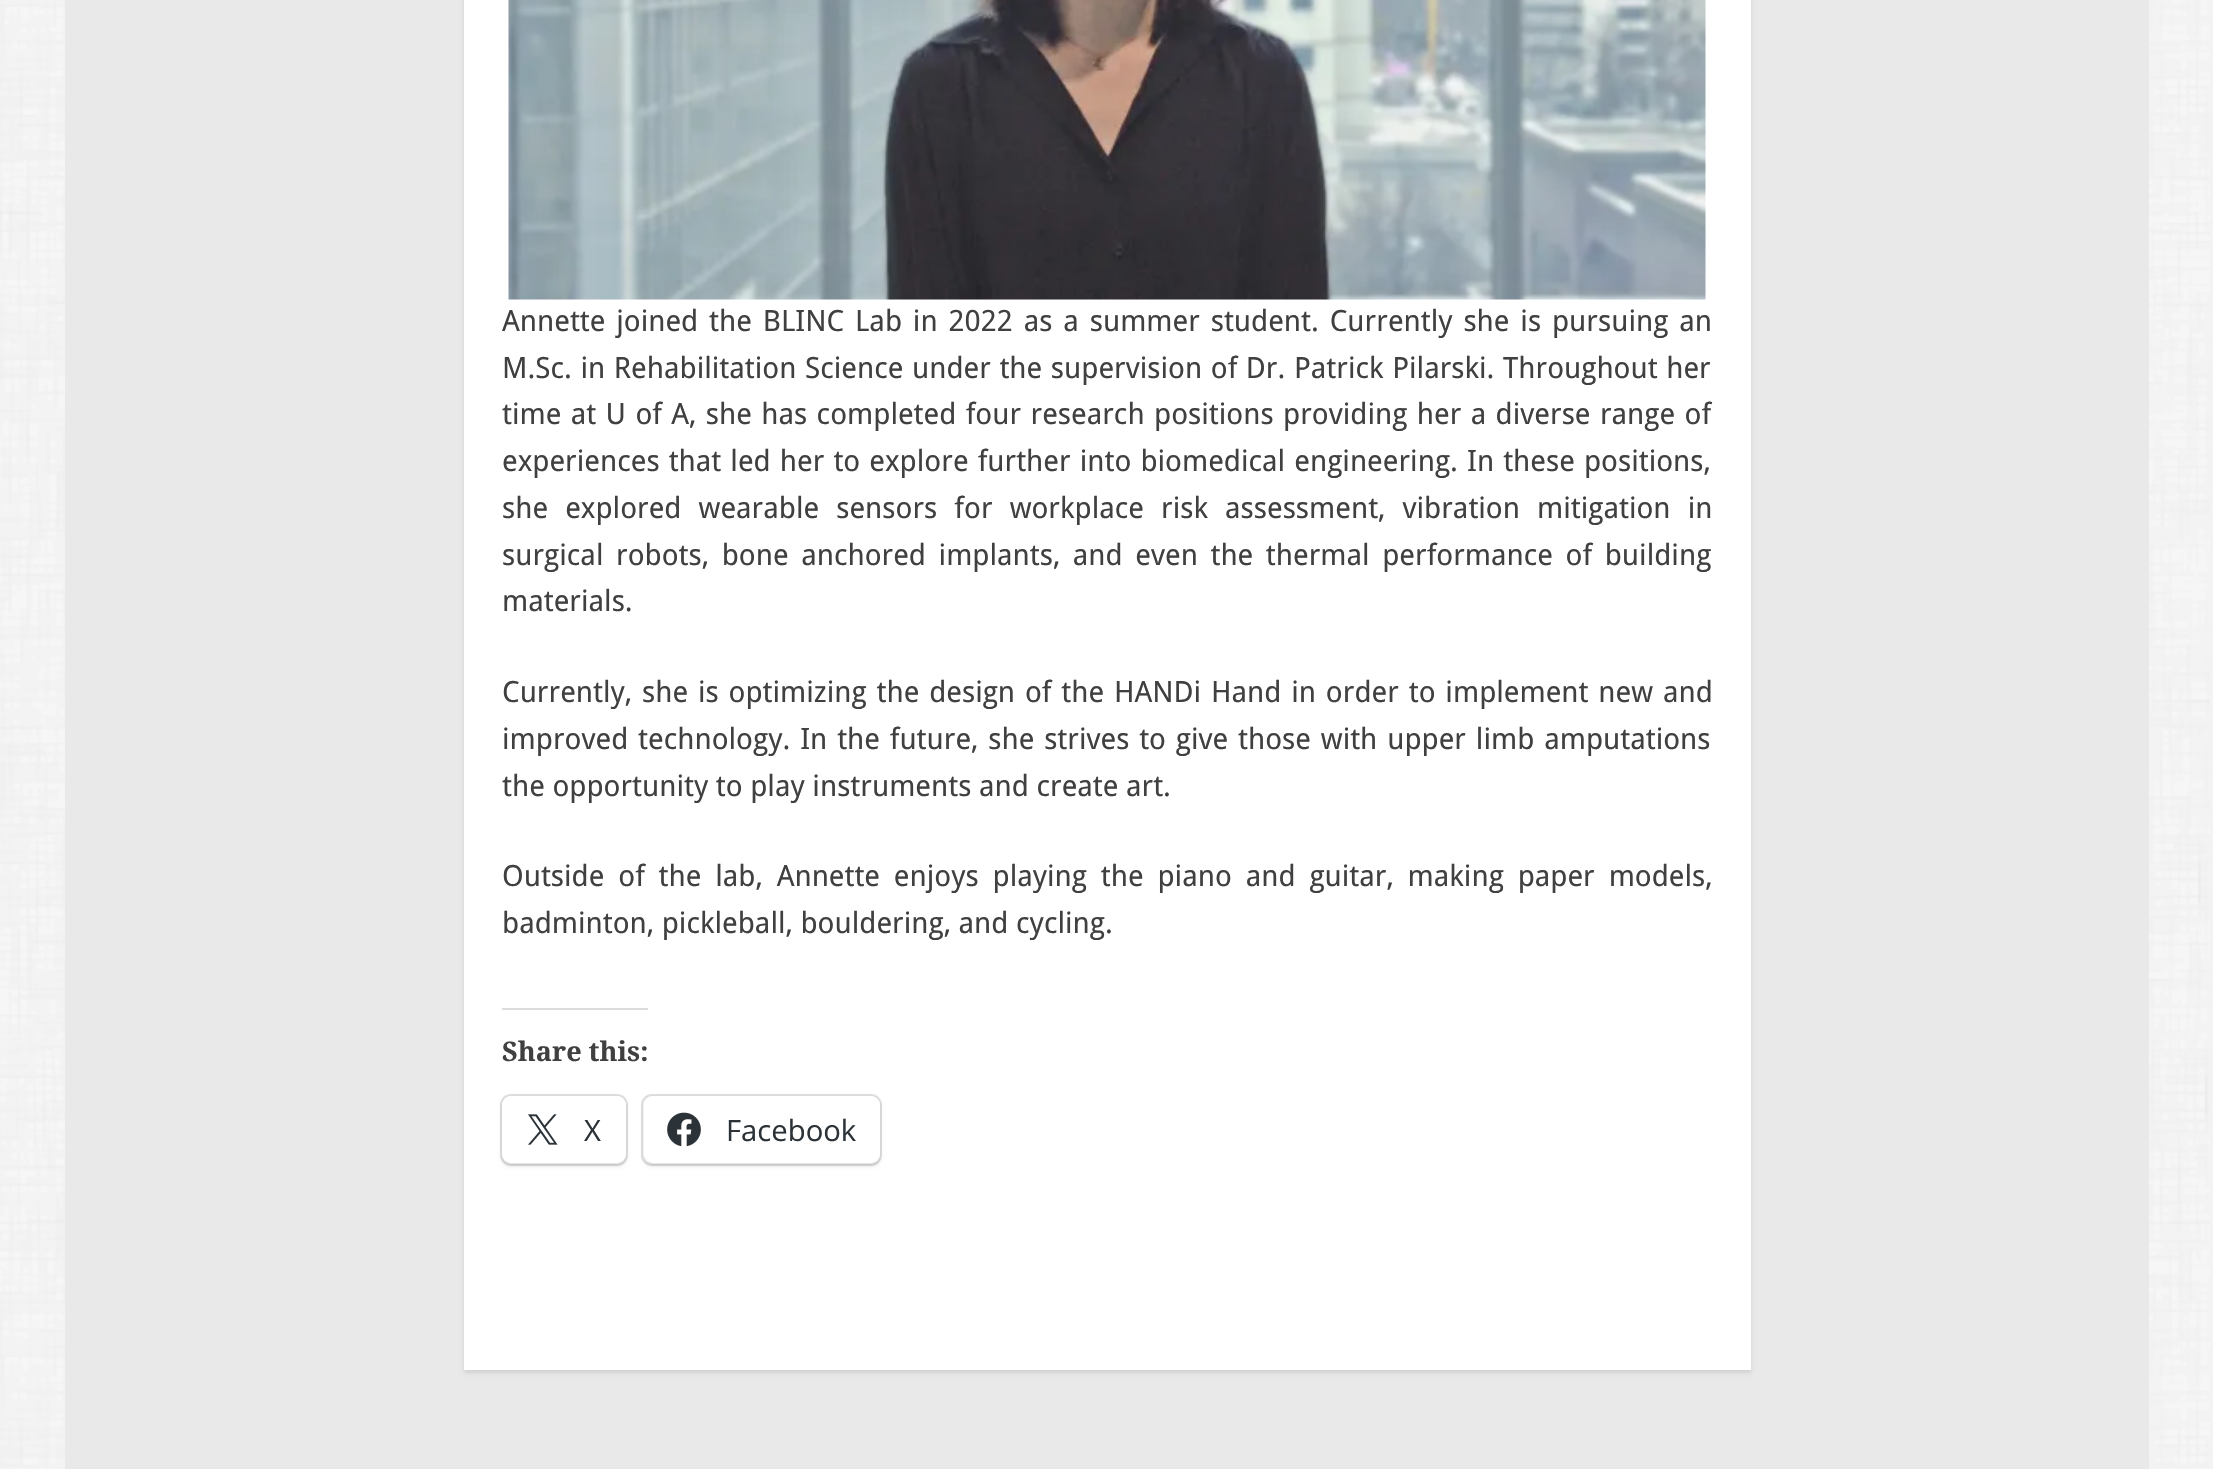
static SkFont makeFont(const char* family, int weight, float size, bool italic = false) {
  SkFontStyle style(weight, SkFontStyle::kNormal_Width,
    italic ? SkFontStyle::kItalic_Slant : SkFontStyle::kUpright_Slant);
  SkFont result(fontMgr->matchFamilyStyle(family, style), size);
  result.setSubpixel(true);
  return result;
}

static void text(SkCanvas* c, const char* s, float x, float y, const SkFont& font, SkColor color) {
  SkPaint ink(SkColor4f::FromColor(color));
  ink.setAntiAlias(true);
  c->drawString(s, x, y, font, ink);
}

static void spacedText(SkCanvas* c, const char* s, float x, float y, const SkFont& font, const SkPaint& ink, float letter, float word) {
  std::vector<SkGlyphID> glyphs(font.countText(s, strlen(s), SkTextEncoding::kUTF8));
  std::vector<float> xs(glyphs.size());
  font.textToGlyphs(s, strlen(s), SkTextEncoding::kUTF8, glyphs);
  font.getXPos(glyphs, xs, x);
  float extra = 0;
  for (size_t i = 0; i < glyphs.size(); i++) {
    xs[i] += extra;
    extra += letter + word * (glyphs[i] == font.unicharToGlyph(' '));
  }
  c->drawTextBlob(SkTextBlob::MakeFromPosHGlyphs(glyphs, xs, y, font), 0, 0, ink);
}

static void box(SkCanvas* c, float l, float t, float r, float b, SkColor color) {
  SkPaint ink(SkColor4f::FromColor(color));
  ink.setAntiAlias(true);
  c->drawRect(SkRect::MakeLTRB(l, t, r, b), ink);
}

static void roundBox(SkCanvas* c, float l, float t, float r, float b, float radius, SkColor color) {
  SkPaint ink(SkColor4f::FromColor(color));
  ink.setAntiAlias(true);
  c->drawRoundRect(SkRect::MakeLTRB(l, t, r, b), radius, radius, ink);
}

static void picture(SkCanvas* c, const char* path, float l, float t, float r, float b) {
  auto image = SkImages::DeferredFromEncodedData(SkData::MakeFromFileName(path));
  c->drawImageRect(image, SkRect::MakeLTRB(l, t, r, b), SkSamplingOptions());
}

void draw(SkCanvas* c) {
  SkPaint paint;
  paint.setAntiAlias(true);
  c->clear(0xfff3f3f3);
  picture(c, "img_01.png", 0, 0, 2210, 1467);
  box(c, 65, 0, 2149, 1469, 0xffe9e9e9);
  paint.setColor(0x1a000000);
  paint.setMaskFilter(SkMaskFilter::MakeBlur(kNormal_SkBlurStyle, 2));
  c->drawRect(SkRect::MakeLTRB(464, -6, 1751, 1373), paint);
  paint.setMaskFilter(nullptr);
  box(c, 464, 0, 1751, 1370, 0xffffffff);
  picture(c, "img_02.png", 508, 0, 1706, 300);
  SkFont face1 = makeFont("Droid Sans", 400, 29.25f);
  paint.setColor(0xff404040);
  spacedText(c, "Annette joined the BLINC Lab in 2022 as a summer student. Currently she is pursuing an", 502, 331, face1, paint, 0, 3.25f);
  spacedText(c, "M.Sc. in Rehabilitation Science under the supervision of Dr. Patrick Pilarski. Throughout her", 502, 378, face1, paint, 0, 1);
  spacedText(c, "time at U of A, she has completed four research positions providing her a diverse range of", 502, 424, face1, paint, 0, 1.8f);
  spacedText(c, "experiences that led her to explore further into biomedical engineering. In these positions,", 502, 471, face1, paint, 0, 1.5f);
  spacedText(c, "she explored wearable sensors for workplace risk assessment, vibration mitigation in", 502, 518, face1, paint, 0, 9.5f);
  spacedText(c, "surgical robots, bone anchored implants, and even the thermal performance of building", 502, 565, face1, paint, 0, 5);
  text(c, "materials.", 502, 611, face1, 0xff404040);
  spacedText(c, "Currently, she is optimizing the design of the HANDi Hand in order to implement new and", 502, 702, face1, paint, 0, 2.25f);
  spacedText(c, "improved technology. In the future, she strives to give those with upper limb amputations", 502, 749, face1, paint, 0, 2.25f);
  text(c, "the opportunity to play instruments and create art.", 502, 796, face1, 0xff404040);
  spacedText(c, "Outside of the lab, Annette enjoys playing the piano and guitar, making paper models,", 502, 886, face1, paint, 0, 6.25f);
  text(c, "badminton, pickleball, bouldering, and cycling.", 502, 933, face1, 0xff404040);
  box(c, 502, 1008, 648, 1010, 0xffdcdcde);
  SkFont face2 = makeFont("Droid Serif", 700, 27);
  text(c, "Share this:", 502, 1061, face2, 0xff404040);
  paint.setStyle(SkPaint::kStroke_Style);
  paint.setStrokeWidth(2);
  paint.setColor(0xffe0e0e0);
  c->drawRoundRect(SkRect::MakeLTRB(501, 1095, 627, 1165), 10, 10, paint);
  paint.setStyle(SkPaint::kFill_Style);
  paint.setColor(0x1f000000);
  paint.setMaskFilter(SkMaskFilter::MakeBlur(kNormal_SkBlurStyle, 2));
  c->drawRoundRect(SkRect::MakeLTRB(502, 1098, 626, 1166), 9, 9, paint);
  paint.setMaskFilter(nullptr);
  roundBox(c, 502, 1096, 626, 1163, 9, 0xffffffff);
  picture(c, "img_03.png", 528, 1114, 558, 1145);
  SkFont face3 = makeFont("Open Sans", 400, 29.25f);
  text(c, "X", 584, 1141, face3, 0xff2c3338);
  paint.setStyle(SkPaint::kStroke_Style);
  paint.setColor(0xffe0e0e0);
  c->drawRoundRect(SkRect::MakeLTRB(642, 1095, 881, 1165), 10, 10, paint);
  paint.setStyle(SkPaint::kFill_Style);
  paint.setColor(0x1f000000);
  paint.setMaskFilter(SkMaskFilter::MakeBlur(kNormal_SkBlurStyle, 2));
  c->drawRoundRect(SkRect::MakeLTRB(644, 1098, 880, 1166), 9, 9, paint);
  paint.setMaskFilter(nullptr);
  roundBox(c, 644, 1096, 880, 1163, 9, 0xffffffff);
  picture(c, "img_04.png", 667, 1112, 701, 1147);
  text(c, "Facebook", 726, 1141, face3, 0xff2c3338);
}
